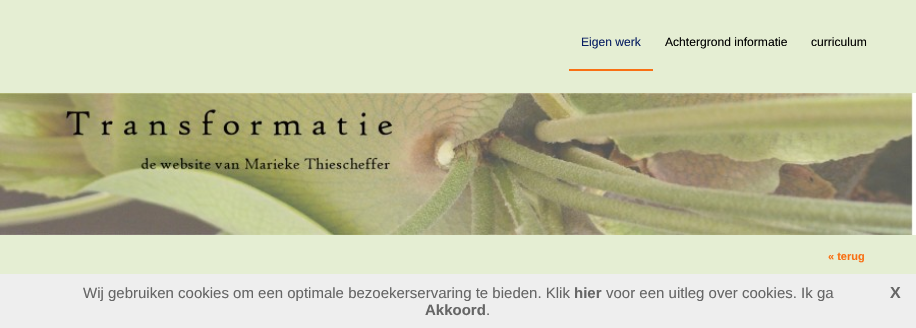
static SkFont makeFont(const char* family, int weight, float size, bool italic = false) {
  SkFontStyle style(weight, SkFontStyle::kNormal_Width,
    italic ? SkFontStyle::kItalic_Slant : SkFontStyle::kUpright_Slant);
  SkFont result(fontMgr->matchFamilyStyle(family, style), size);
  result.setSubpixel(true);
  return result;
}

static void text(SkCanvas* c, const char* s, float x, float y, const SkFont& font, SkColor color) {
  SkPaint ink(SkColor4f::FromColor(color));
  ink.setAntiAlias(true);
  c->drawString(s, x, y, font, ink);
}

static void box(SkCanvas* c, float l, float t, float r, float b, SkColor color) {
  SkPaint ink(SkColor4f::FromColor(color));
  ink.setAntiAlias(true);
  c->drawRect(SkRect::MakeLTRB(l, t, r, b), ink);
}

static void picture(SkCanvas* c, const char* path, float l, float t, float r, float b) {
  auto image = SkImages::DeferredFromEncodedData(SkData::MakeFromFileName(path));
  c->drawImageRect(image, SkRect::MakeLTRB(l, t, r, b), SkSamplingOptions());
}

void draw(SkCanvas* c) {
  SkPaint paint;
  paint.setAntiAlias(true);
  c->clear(0xffe5eed3);
  box(c, 569, 69, 653, 71, 0xfff96f13);
  SkFont face1 = makeFont("Liberation Sans", 400, 12.1f);
  text(c, "Eigen werk", 581, 46, face1, 0xff091f62);
  text(c, "Achtergrond informatie", 665, 46, face1, 0xff000000);
  text(c, "curriculum", 811, 46, face1, 0xff000000);
  picture(c, "img_01.png", 0, 93, 916, 235);
  SkFont face2 = makeFont("Liberation Sans", 700, 11);
  text(c, "« terug", 828, 260, face2, 0xfff96f13);
  box(c, 0, 274, 916, 328, 0xffeeeeee);
  SkFont face3 = makeFont("Liberation Sans", 400, 15);
  text(c, "Wij gebruiken cookies om een optimale bezoekerservaring te bieden. Klik", 83, 298, face3, 0xff666666);
  SkFont face4 = makeFont("Liberation Sans", 700, 15);
  text(c, "hier", 574, 298, face4, 0xff666666);
  text(c, "voor een uitleg over cookies. Ik ga", 606, 298, face3, 0xff666666);
  text(c, "Akkoord", 425, 315, face4, 0xff666666);
  text(c, ".", 486, 315, face3, 0xff666666);
  SkFont face5 = makeFont("Liberation Sans", 700, 16);
  text(c, "X", 890, 298, face5, 0xff666666);
}
